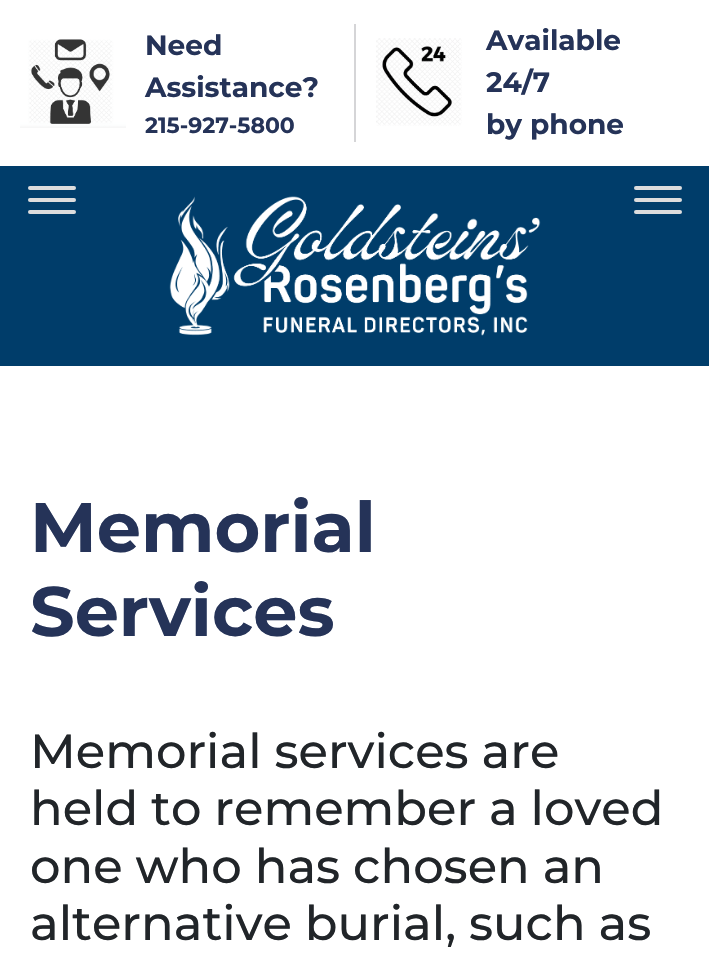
static SkFont makeFont(const char* family, int weight, float size, bool italic = false) {
  SkFontStyle style(weight, SkFontStyle::kNormal_Width,
    italic ? SkFontStyle::kItalic_Slant : SkFontStyle::kUpright_Slant);
  SkFont result(fontMgr->matchFamilyStyle(family, style), size);
  result.setSubpixel(true);
  return result;
}

static void text(SkCanvas* c, const char* s, float x, float y, const SkFont& font, SkColor color) {
  SkPaint ink(SkColor4f::FromColor(color));
  ink.setAntiAlias(true);
  c->drawString(s, x, y, font, ink);
}

static void box(SkCanvas* c, float l, float t, float r, float b, SkColor color) {
  SkPaint ink(SkColor4f::FromColor(color));
  ink.setAntiAlias(true);
  c->drawRect(SkRect::MakeLTRB(l, t, r, b), ink);
}

static void roundBox(SkCanvas* c, float l, float t, float r, float b, float radius, SkColor color) {
  SkPaint ink(SkColor4f::FromColor(color));
  ink.setAntiAlias(true);
  c->drawRoundRect(SkRect::MakeLTRB(l, t, r, b), radius, radius, ink);
}

static void picture(SkCanvas* c, const char* path, float l, float t, float r, float b) {
  auto image = SkImages::DeferredFromEncodedData(SkData::MakeFromFileName(path));
  c->drawImageRect(image, SkRect::MakeLTRB(l, t, r, b), SkSamplingOptions());
}

void draw(SkCanvas* c) {
  SkPaint paint;
  paint.setAntiAlias(true);
  c->clear(0xffffffff);
  box(c, 354, 24, 356, 142, 0xffd5d5d7);
  picture(c, "img_01.png", 20, 39, 126, 128);
  SkFont face1 = makeFont("Montserrat", 700, 28);
  text(c, "Need", 145, 55, face1, 0xff253358);
  text(c, "Assistance?", 145, 97, face1, 0xff253358);
  SkFont face2 = makeFont("Montserrat", 700, 22);
  text(c, "215-927-5800", 145, 133, face2, 0xff253358);
  picture(c, "img_02.png", 376, 38, 462, 126);
  text(c, "Available", 486, 50, face1, 0xff253358);
  text(c, "24/7", 486, 92, face1, 0xff253358);
  text(c, "by phone", 486, 134, face1, 0xff253358);
  box(c, 0, 166, 709, 366, 0xff003d6a);
  picture(c, "img_03.png", 169, 196, 541, 336);
  roundBox(c, 28, 186, 76, 190, 2, 0xffdddddd);
  roundBox(c, 28, 198, 76, 202, 2, 0xffdddddd);
  roundBox(c, 28, 210, 76, 214, 2, 0xffdddddd);
  roundBox(c, 634, 186, 682, 190, 2, 0xffdddddd);
  roundBox(c, 634, 198, 682, 202, 2, 0xffdddddd);
  roundBox(c, 634, 210, 682, 214, 2, 0xffdddddd);
  SkFont face3 = makeFont("Montserrat", 700, 70);
  text(c, "Memorial", 30, 552, face3, 0xff253358);
  text(c, "Services", 30, 636, face3, 0xff253358);
  SkFont face4 = makeFont("Montserrat", 500, 48);
  text(c, "Memorial services are", 30, 768, face4, 0xff212529);
  text(c, "held to remember a loved", 30, 825, face4, 0xff212529);
  text(c, "one who has chosen an", 30, 883, face4, 0xff212529);
  text(c, "alternative burial, such as", 30, 940, face4, 0xff212529);
}
